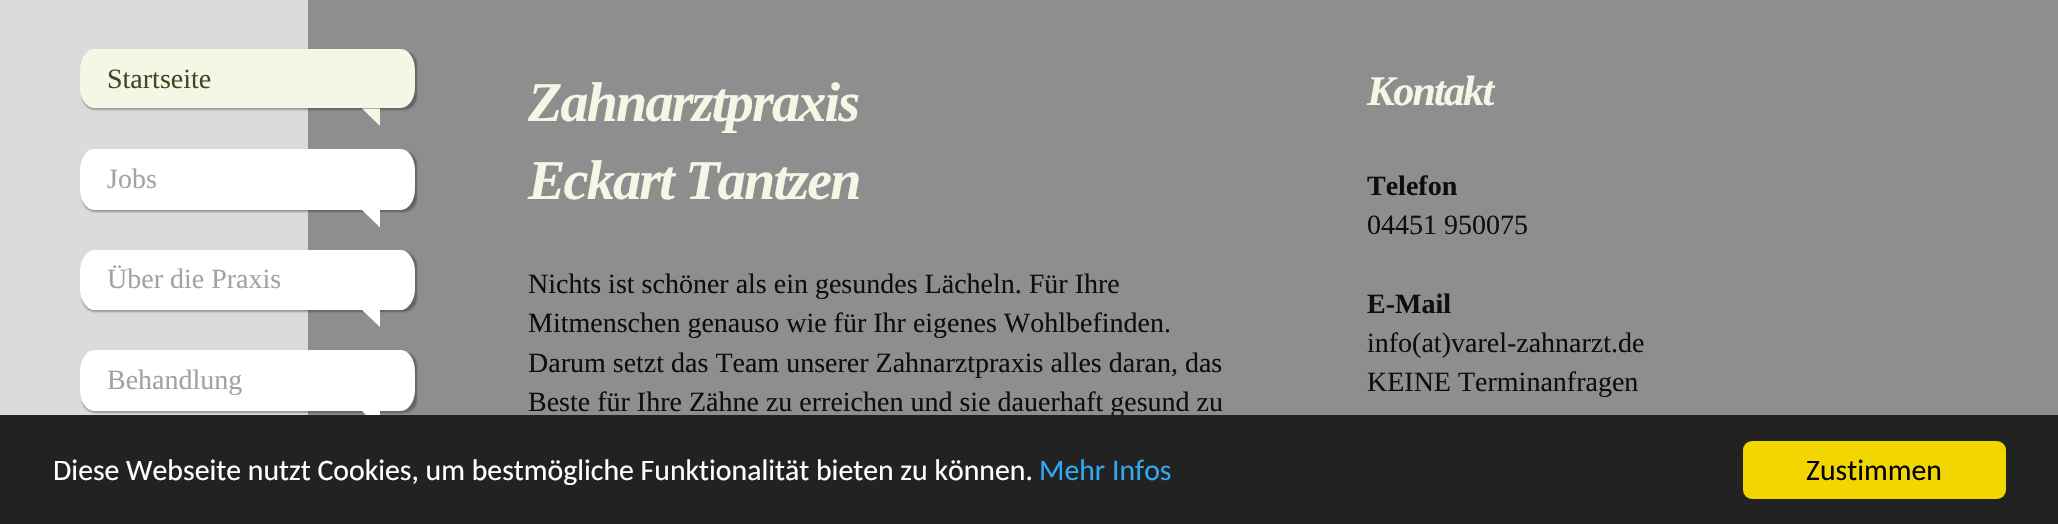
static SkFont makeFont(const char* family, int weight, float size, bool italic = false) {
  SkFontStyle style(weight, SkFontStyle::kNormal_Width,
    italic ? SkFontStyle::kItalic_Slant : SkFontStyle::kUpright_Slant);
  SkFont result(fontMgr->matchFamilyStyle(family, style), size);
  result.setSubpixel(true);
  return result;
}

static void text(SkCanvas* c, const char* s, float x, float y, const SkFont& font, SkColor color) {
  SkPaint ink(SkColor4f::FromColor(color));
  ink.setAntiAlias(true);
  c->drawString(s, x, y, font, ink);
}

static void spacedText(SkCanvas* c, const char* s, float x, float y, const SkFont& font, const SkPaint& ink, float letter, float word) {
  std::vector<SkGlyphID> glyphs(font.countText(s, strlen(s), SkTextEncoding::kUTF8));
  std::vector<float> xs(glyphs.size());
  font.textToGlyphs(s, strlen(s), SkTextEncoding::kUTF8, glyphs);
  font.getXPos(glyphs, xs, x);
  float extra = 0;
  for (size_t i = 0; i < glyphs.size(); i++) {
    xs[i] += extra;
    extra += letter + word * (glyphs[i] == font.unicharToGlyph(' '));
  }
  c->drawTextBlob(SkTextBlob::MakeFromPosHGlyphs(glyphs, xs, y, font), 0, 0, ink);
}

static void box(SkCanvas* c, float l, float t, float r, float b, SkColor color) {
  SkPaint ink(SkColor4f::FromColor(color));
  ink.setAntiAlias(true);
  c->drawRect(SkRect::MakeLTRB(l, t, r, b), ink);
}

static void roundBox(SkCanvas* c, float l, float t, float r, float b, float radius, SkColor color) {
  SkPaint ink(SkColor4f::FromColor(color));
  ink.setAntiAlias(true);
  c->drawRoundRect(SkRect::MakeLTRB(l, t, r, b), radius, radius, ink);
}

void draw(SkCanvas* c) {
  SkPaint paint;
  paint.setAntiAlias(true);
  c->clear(0xffdbdbdb);
  box(c, 308, 0, 2058, 415, 0xff8e8e8e);
  paint.setColor(0x4d000000);
  paint.setMaskFilter(SkMaskFilter::MakeBlur(kNormal_SkBlurStyle, 1));
  c->drawRoundRect(SkRect::MakeLTRB(82, 51, 417, 110), 14, 14, paint);
  paint.setMaskFilter(nullptr);
  paint.setColor(0xfff4f7e6);
  c->drawPath(SkPathBuilder().moveTo(94, 49).lineTo(401, 49).cubicTo(408, 49, 415, 58, 415, 70).lineTo(415, 88).cubicTo(415, 99, 408, 108, 401, 108).lineTo(94, 108).cubicTo(87, 108, 80, 99, 80, 88).lineTo(80, 70).cubicTo(80, 58, 87, 49, 94, 49).close().detach(), paint);
  paint.setColor(0x1affffff);
  c->drawPath(SkPathBuilder().moveTo(94, 51).lineTo(401, 51).cubicTo(407, 51, 413, 58, 415, 67).cubicTo(414, 57, 408, 49, 401, 49).lineTo(94, 49).cubicTo(88, 49, 83, 55, 81, 64).cubicTo(83, 56, 89, 51, 94, 51).close().detach(), paint);
  SkFont face1 = makeFont("Liberation Serif", 400, 28);
  text(c, "Startseite", 107, 88, face1, 0xff424826);
  paint.setColor(0xfff4f7e6);
  c->drawPath(SkPathBuilder().moveTo(362, 108.5f).lineTo(380, 108.5f).lineTo(380, 126).close().detach(), paint);
  paint.setColor(0x4d000000);
  paint.setMaskFilter(SkMaskFilter::MakeBlur(kNormal_SkBlurStyle, 1));
  c->drawRoundRect(SkRect::MakeLTRB(82, 151, 417, 212), 14, 14, paint);
  paint.setMaskFilter(nullptr);
  paint.setColor(0xffffffff);
  c->drawPath(SkPathBuilder().moveTo(94, 149).lineTo(401, 149).cubicTo(408, 149, 415, 158, 415, 170).lineTo(415, 189).cubicTo(415, 201, 408, 210, 401, 210).lineTo(94, 210).cubicTo(87, 210, 80, 201, 80, 189).lineTo(80, 170).cubicTo(80, 158, 87, 149, 94, 149).close().detach(), paint);
  paint.setColor(0x1affffff);
  c->drawPath(SkPathBuilder().moveTo(94, 150).lineTo(401, 150).cubicTo(407, 150, 413, 158, 415, 168).cubicTo(414, 157, 408, 149, 401, 149).lineTo(94, 149).cubicTo(88, 149, 83, 155, 81, 164).cubicTo(83, 156, 89, 150, 94, 150).close().detach(), paint);
  text(c, "Jobs", 107, 188, face1, 0xffa3a3a3);
  paint.setColor(0xffffffff);
  c->drawPath(SkPathBuilder().moveTo(362, 210).lineTo(380, 210).lineTo(380, 227.5f).close().detach(), paint);
  paint.setColor(0x4d000000);
  paint.setMaskFilter(SkMaskFilter::MakeBlur(kNormal_SkBlurStyle, 1));
  c->drawRoundRect(SkRect::MakeLTRB(82, 252, 417, 312), 14, 14, paint);
  paint.setMaskFilter(nullptr);
  paint.setColor(0xffffffff);
  c->drawPath(SkPathBuilder().moveTo(94, 250).lineTo(401, 250).cubicTo(408, 250, 415, 260, 415, 271).lineTo(415, 289).cubicTo(415, 300, 408, 310, 401, 310).lineTo(94, 310).cubicTo(87, 310, 80, 300, 80, 289).lineTo(80, 271).cubicTo(80, 260, 87, 250, 94, 250).close().detach(), paint);
  paint.setColor(0x1affffff);
  c->drawPath(SkPathBuilder().moveTo(94, 252).lineTo(401, 252).cubicTo(407, 252, 413, 259, 415, 268).cubicTo(414, 258, 408, 250, 401, 250).lineTo(94, 250).cubicTo(88, 250, 83, 256, 81, 265).cubicTo(84, 257, 89, 252, 94, 252).close().detach(), paint);
  text(c, "Über die Praxis", 107, 288, face1, 0xffa3a3a3);
  paint.setColor(0xffffffff);
  c->drawPath(SkPathBuilder().moveTo(362, 310).lineTo(380, 310).lineTo(380, 327).close().detach(), paint);
  paint.setColor(0x4d000000);
  paint.setMaskFilter(SkMaskFilter::MakeBlur(kNormal_SkBlurStyle, 1));
  c->drawRoundRect(SkRect::MakeLTRB(82, 352, 417, 413), 14, 14, paint);
  paint.setMaskFilter(nullptr);
  paint.setColor(0xffffffff);
  c->drawPath(SkPathBuilder().moveTo(94, 350).lineTo(401, 350).cubicTo(408, 350, 415, 359, 415, 371).lineTo(415, 390).cubicTo(415, 402, 408, 411, 401, 411).lineTo(94, 411).cubicTo(87, 411, 80, 402, 80, 390).lineTo(80, 371).cubicTo(80, 359, 87, 350, 94, 350).close().detach(), paint);
  paint.setColor(0x1affffff);
  c->drawPath(SkPathBuilder().moveTo(94, 352).lineTo(401, 352).cubicTo(407, 352, 413, 359, 415, 368).cubicTo(414, 358, 408, 350, 401, 350).lineTo(94, 350).cubicTo(88, 350, 83, 356, 81, 365).cubicTo(83, 357, 89, 352, 94, 352).close().detach(), paint);
  text(c, "Behandlung", 107, 389, face1, 0xffa3a3a3);
  paint.setColor(0xffffffff);
  c->drawPath(SkPathBuilder().moveTo(362, 411).lineTo(380, 411).lineTo(380, 429).close().detach(), paint);
  SkFont face2 = makeFont("Liberation Serif", 700, 56, true);
  paint.setColor(0xfff4f7e6);
  spacedText(c, "Zahnarztpraxis", 528, 121, face2, paint, -1.75f, 0);
  spacedText(c, "Eckart Tantzen", 528, 199, face2, paint, -1.75f, 0);
  text(c, "Nichts ist schöner als ein gesundes Lächeln. Für Ihre", 528, 293, face1, 0xff0e0e0e);
  text(c, "Mitmenschen genauso wie für Ihr eigenes Wohlbefinden.", 528, 332, face1, 0xff0e0e0e);
  text(c, "Darum setzt das Team unserer Zahnarztpraxis alles daran, das", 528, 372, face1, 0xff0e0e0e);
  text(c, "Beste für Ihre Zähne zu erreichen und sie dauerhaft gesund zu", 528, 411, face1, 0xff0e0e0e);
  SkFont face3 = makeFont("Liberation Serif", 700, 42, true);
  spacedText(c, "Kontakt", 1367, 105, face3, paint, -1.75f, 0);
  SkFont face4 = makeFont("Liberation Serif", 700, 28);
  text(c, "Telefon", 1367, 195, face4, 0xff0e0e0e);
  text(c, "04451 950075", 1367, 234, face1, 0xff0e0e0e);
  text(c, "E-Mail", 1367, 313, face4, 0xff0e0e0e);
  text(c, "info(at)varel-zahnarzt.de", 1367, 352, face1, 0xff0e0e0e);
  text(c, "KEINE Terminanfragen", 1367, 391, face1, 0xff0e0e0e);
  box(c, 0, 415, 2058, 524, 0xff222222);
  SkFont face5 = makeFont("Carlito", 400, 29.75f);
  text(c, "Diese Webseite nutzt Cookies, um bestmögliche Funktionalität bieten zu können.", 53, 480, face5, 0xffffffff);
  text(c, "Mehr Infos", 1039, 480, face5, 0xff31a8f0);
  roundBox(c, 1743, 441, 2006, 499, 9, 0xfff1d600);
  text(c, "Zustimmen", 1806, 480, face5, 0xff000000);
}
